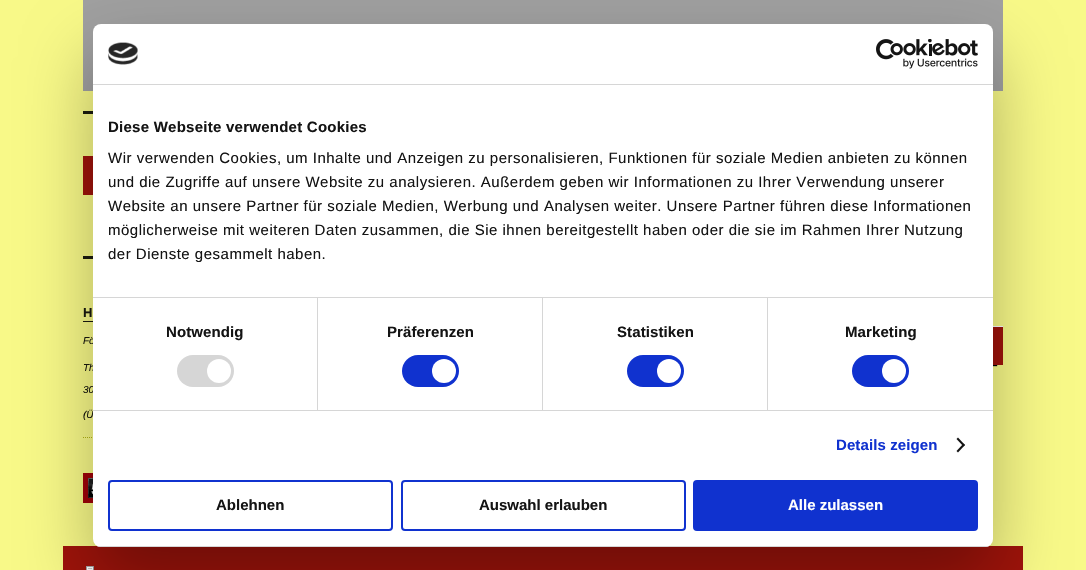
static SkFont makeFont(const char* family, int weight, float size, bool italic = false) {
  SkFontStyle style(weight, SkFontStyle::kNormal_Width,
    italic ? SkFontStyle::kItalic_Slant : SkFontStyle::kUpright_Slant);
  SkFont result(fontMgr->matchFamilyStyle(family, style), size);
  result.setSubpixel(true);
  return result;
}

static void text(SkCanvas* c, const char* s, float x, float y, const SkFont& font, SkColor color) {
  SkPaint ink(SkColor4f::FromColor(color));
  ink.setAntiAlias(true);
  c->drawString(s, x, y, font, ink);
}

static void spacedText(SkCanvas* c, const char* s, float x, float y, const SkFont& font, const SkPaint& ink, float letter, float word) {
  std::vector<SkGlyphID> glyphs(font.countText(s, strlen(s), SkTextEncoding::kUTF8));
  std::vector<float> xs(glyphs.size());
  font.textToGlyphs(s, strlen(s), SkTextEncoding::kUTF8, glyphs);
  font.getXPos(glyphs, xs, x);
  float extra = 0;
  for (size_t i = 0; i < glyphs.size(); i++) {
    xs[i] += extra;
    extra += letter + word * (glyphs[i] == font.unicharToGlyph(' '));
  }
  c->drawTextBlob(SkTextBlob::MakeFromPosHGlyphs(glyphs, xs, y, font), 0, 0, ink);
}

static void box(SkCanvas* c, float l, float t, float r, float b, SkColor color) {
  SkPaint ink(SkColor4f::FromColor(color));
  ink.setAntiAlias(true);
  c->drawRect(SkRect::MakeLTRB(l, t, r, b), ink);
}

static void roundBox(SkCanvas* c, float l, float t, float r, float b, float radius, SkColor color) {
  SkPaint ink(SkColor4f::FromColor(color));
  ink.setAntiAlias(true);
  c->drawRoundRect(SkRect::MakeLTRB(l, t, r, b), radius, radius, ink);
}

static void picture(SkCanvas* c, const char* path, float l, float t, float r, float b) {
  auto image = SkImages::DeferredFromEncodedData(SkData::MakeFromFileName(path));
  c->drawImageRect(image, SkRect::MakeLTRB(l, t, r, b), SkSamplingOptions());
}

void draw(SkCanvas* c) {
  SkPaint paint;
  paint.setAntiAlias(true);
  c->clear(0xfff8f988);
  box(c, 83, 0, 1003, 91, 0xffa0a0a0);
  box(c, 83, 111, 93, 114, 0xff1b1b0e);
  box(c, 83, 256, 93, 259, 0xff1b1b0e);
  box(c, 83, 156, 93, 195, 0xff9e130a);
  box(c, 83, 321, 93, 322, 0xff19190e);
  SkFont face1 = makeFont("Liberation Sans", 700, 13);
  text(c, "H", 83, 317, face1, 0xff19190e);
  SkFont face2 = makeFont("Liberation Sans", 400, 10, true);
  text(c, "Fö", 83, 344, face2, 0xff19190e);
  text(c, "Th", 83, 371, face2, 0xff19190e);
  text(c, "30", 83, 393, face2, 0xff19190e);
  text(c, "(Ü", 83, 418, face2, 0xff19190e);
  paint.setStyle(SkPaint::kStroke_Style);
  paint.setStrokeWidth(1);
  paint.setColor(0xffb3b415);
  paint.setPathEffect(SkDashPathEffect::Make({{1, 1}}, 0));
  c->drawPath(SkPathBuilder().moveTo(83, 437.5f).lineTo(325, 437.5f).detach(), paint);
  paint.setPathEffect(nullptr);
  paint.setStrokeWidth(5);
  paint.setColor(0xff9f0408);
  c->drawRect(SkRect::MakeLTRB(85.5f, 475.5f, 190.5f, 500.5f), paint);
  picture(c, "img_01.png", 88, 478, 93, 498);
  paint.setStyle(SkPaint::kFill_Style);
  paint.setColor(0xff000000);
  paint.setMaskFilter(SkMaskFilter::MakeBlur(kNormal_SkBlurStyle, 0.5f));
  c->drawRect(SkRect::MakeLTRB(930, 339, 997, 366), paint);
  paint.setMaskFilter(nullptr);
  box(c, 993, 327, 1003, 365, 0xff9e130a);
  box(c, 993, 326, 1003, 327, 0xffffffff);
  box(c, 63, 546, 1023, 570, 0xff9e130a);
  picture(c, "img_02.png", 86, 566, 94, 570);
  paint.setColor(0x4d000000);
  paint.setMaskFilter(SkMaskFilter::MakeBlur(kNormal_SkBlurStyle, 34));
  c->drawRoundRect(SkRect::MakeLTRB(93, 56, 993, 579), 8, 8, paint);
  paint.setMaskFilter(nullptr);
  roundBox(c, 93, 24, 993, 547, 8, 0xffffffff);
  box(c, 93, 84, 993, 85, 0xffd6d6d6);
  picture(c, "img_03.png", 108, 42, 138, 65);
  picture(c, "img_04.png", 876, 39, 978, 69);
  box(c, 93, 297, 993, 298, 0xffd6d6d6);
  SkFont face3 = makeFont("Liberation Sans", 700, 15);
  paint.setColor(0xff141414);
  spacedText(c, "Diese Webseite verwendet Cookies", 108, 132, face3, paint, 0.25f, 0);
  SkFont face4 = makeFont("Liberation Sans", 400, 15);
  spacedText(c, "Wir verwenden Cookies, um Inhalte und Anzeigen zu personalisieren, Funktionen für soziale Medien anbieten zu können", 108, 163, face4, paint, 0.5f, 0);
  spacedText(c, "und die Zugriffe auf unsere Website zu analysieren. Außerdem geben wir Informationen zu Ihrer Verwendung unserer", 108, 187, face4, paint, 0.5f, 0);
  spacedText(c, "Website an unsere Partner für soziale Medien, Werbung und Analysen weiter. Unsere Partner führen diese Informationen", 108, 211, face4, paint, 0.5f, 0);
  spacedText(c, "möglicherweise mit weiteren Daten zusammen, die Sie ihnen bereitgestellt haben oder die sie im Rahmen Ihrer Nutzung", 108, 235, face4, paint, 0.5f, 0);
  spacedText(c, "der Dienste gesammelt haben.", 108, 259, face4, paint, 0.5f, 0);
  box(c, 93, 410, 993, 411, 0xffd6d6d6);
  box(c, 317, 298, 318, 410, 0xffd6d6d6);
  spacedText(c, "Notwendig", 166, 337, face3, paint, 0.1f, 0);
  roundBox(c, 177, 355, 234, 387, 16, 0xffd6d6d6);
  paint.setColor(0xffffffff);
  c->drawCircle(219, 371, 12, paint);
  box(c, 542, 298, 543, 410, 0xffd6d6d6);
  paint.setColor(0xff141414);
  spacedText(c, "Präferenzen", 387, 337, face3, paint, 0.1f, 0);
  roundBox(c, 402, 355, 459, 387, 16, 0xff1032cf);
  paint.setColor(0xffffffff);
  c->drawCircle(444, 371, 12, paint);
  box(c, 767, 298, 768, 410, 0xffd6d6d6);
  paint.setColor(0xff141414);
  spacedText(c, "Statistiken", 617, 337, face3, paint, 0.1f, 0);
  roundBox(c, 627, 355, 684, 387, 16, 0xff1032cf);
  paint.setColor(0xffffffff);
  c->drawCircle(669, 371, 12, paint);
  paint.setColor(0xff141414);
  spacedText(c, "Marketing", 845, 337, face3, paint, 0.1f, 0);
  roundBox(c, 852, 355, 909, 387, 16, 0xff1032cf);
  paint.setColor(0xffffffff);
  c->drawCircle(894, 371, 12, paint);
  paint.setColor(0xff1032cf);
  spacedText(c, "Details zeigen", 836, 450, face3, paint, 0.1f, 0);
  paint.setColor(0xff141414);
  c->drawPath(SkPathBuilder().moveTo(958, 437.5f).lineTo(965, 445).lineTo(963.5f, 446.5f).lineTo(956.5f, 439).close().detach(), paint);
  c->drawPath(SkPathBuilder().moveTo(963.5f, 443.5f).lineTo(965, 445).lineTo(958, 452.5f).lineTo(956.5f, 451).close().detach(), paint);
  c->save();
  c->clipPath(SkPathBuilder().moveTo(101, 24).lineTo(985, 24).cubicTo(989.5f, 24, 993, 27.5f, 993, 32).lineTo(993, 539).cubicTo(993, 543.5f, 989.5f, 547, 985, 547).lineTo(101, 547).cubicTo(96.5f, 547, 93, 543.5f, 93, 539).lineTo(93, 32).cubicTo(93, 27.5f, 96.5f, 24, 101, 24).close().detach(), true);
  box(c, 93, 546, 993, 547, 0xffd6d6d6);
  c->restore();
  paint.setStyle(SkPaint::kStroke_Style);
  paint.setStrokeWidth(2);
  paint.setColor(0xff1032cf);
  c->drawRoundRect(SkRect::MakeLTRB(109, 481, 392, 530), 3, 3, paint);
  text(c, "Ablehnen", 216, 510, face3, 0xff141414);
  c->drawRoundRect(SkRect::MakeLTRB(402, 481, 685, 530), 3, 3, paint);
  text(c, "Auswahl erlauben", 479, 510, face3, 0xff141414);
  paint.setStyle(SkPaint::kFill_Style);
  c->drawRoundRect(SkRect::MakeLTRB(694, 481, 977, 530), 3, 3, paint);
  paint.setStyle(SkPaint::kStroke_Style);
  c->drawRoundRect(SkRect::MakeLTRB(694, 481, 977, 530), 3, 3, paint);
  text(c, "Alle zulassen", 788, 510, face3, 0xffffffff);
}
